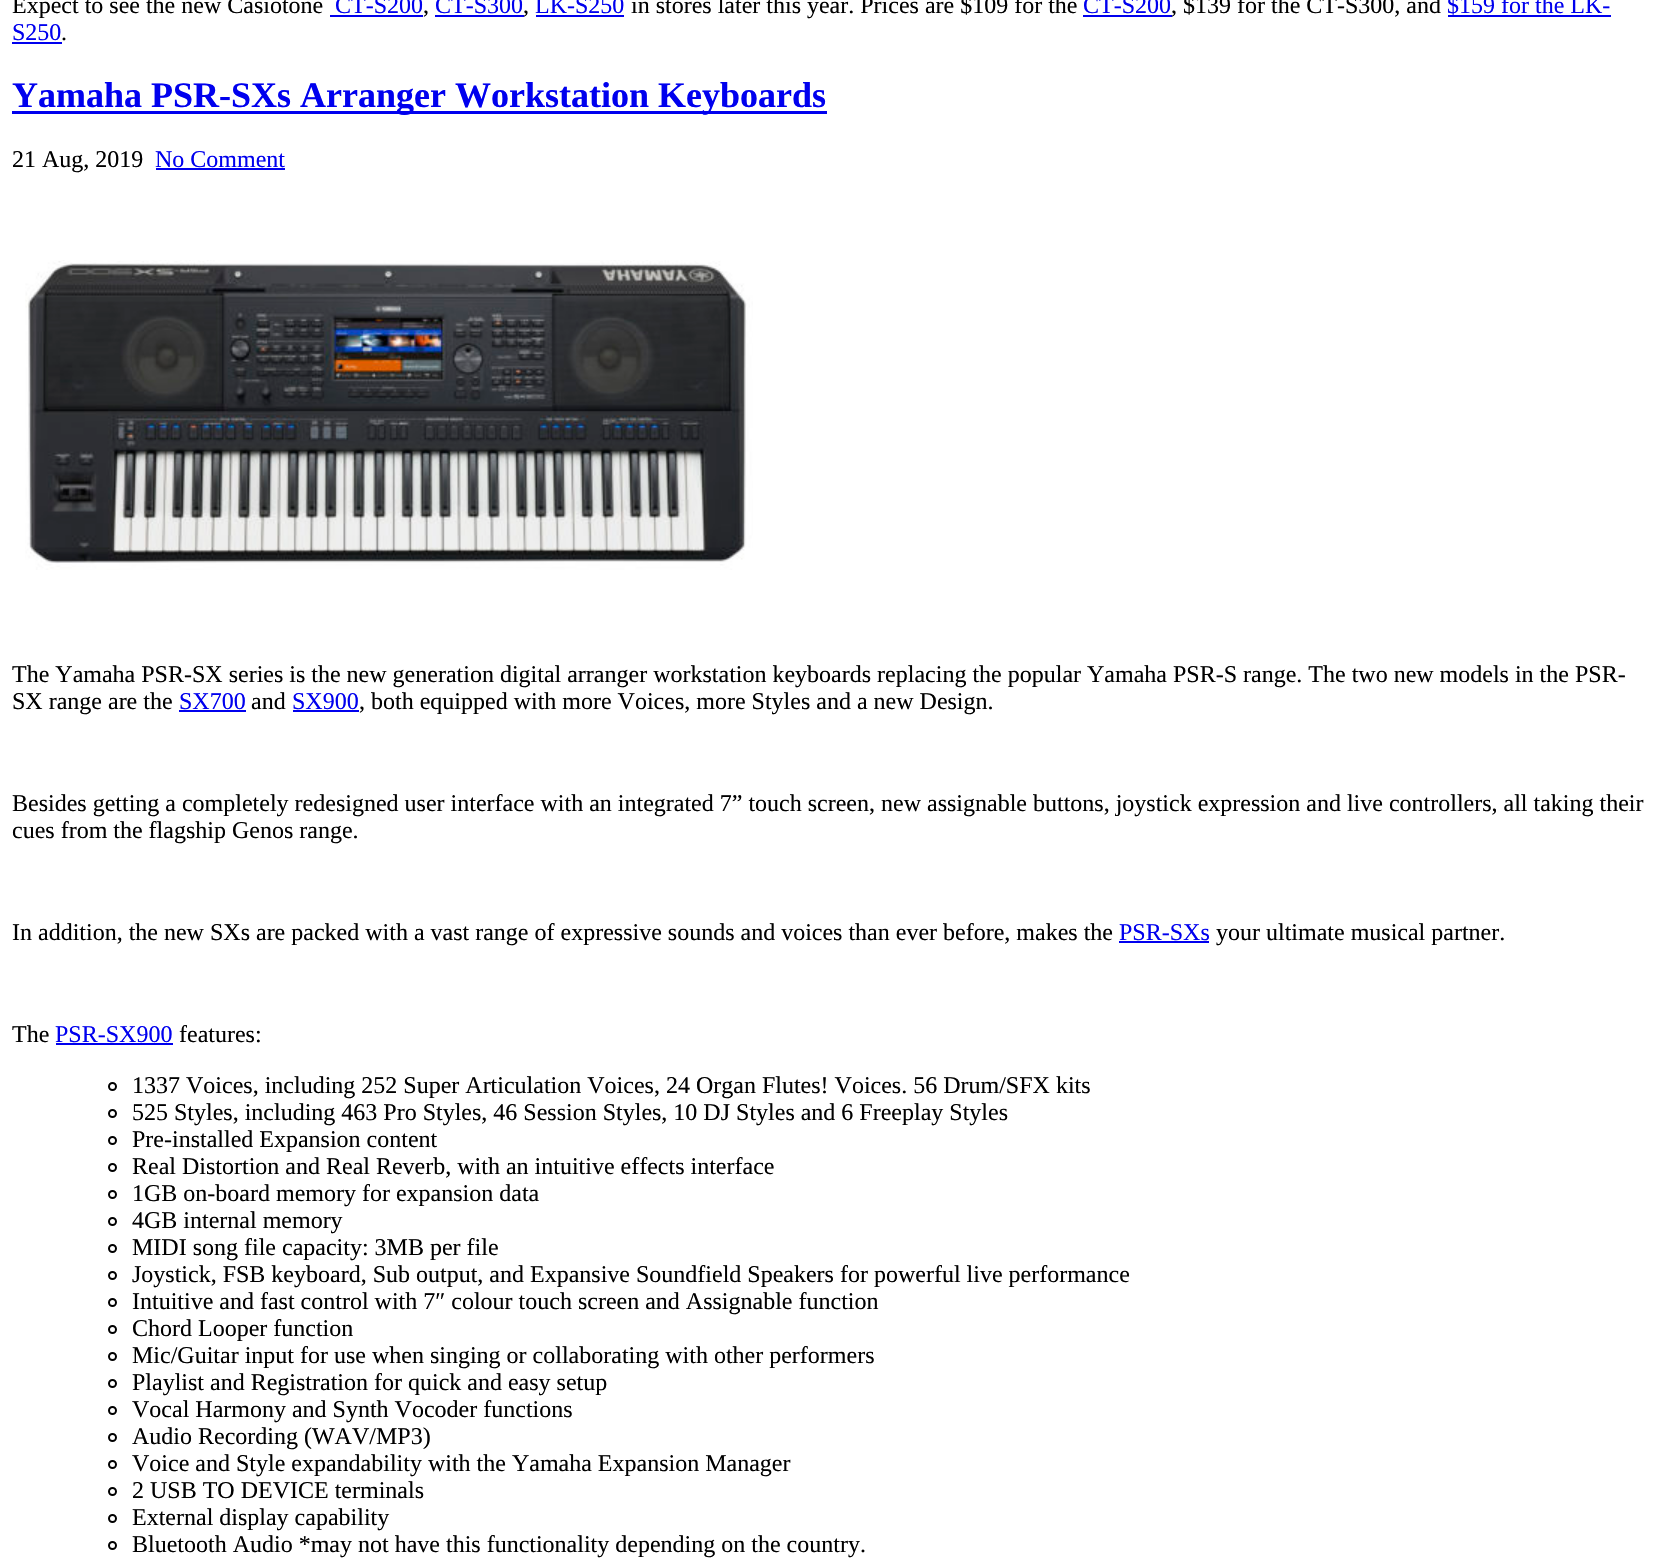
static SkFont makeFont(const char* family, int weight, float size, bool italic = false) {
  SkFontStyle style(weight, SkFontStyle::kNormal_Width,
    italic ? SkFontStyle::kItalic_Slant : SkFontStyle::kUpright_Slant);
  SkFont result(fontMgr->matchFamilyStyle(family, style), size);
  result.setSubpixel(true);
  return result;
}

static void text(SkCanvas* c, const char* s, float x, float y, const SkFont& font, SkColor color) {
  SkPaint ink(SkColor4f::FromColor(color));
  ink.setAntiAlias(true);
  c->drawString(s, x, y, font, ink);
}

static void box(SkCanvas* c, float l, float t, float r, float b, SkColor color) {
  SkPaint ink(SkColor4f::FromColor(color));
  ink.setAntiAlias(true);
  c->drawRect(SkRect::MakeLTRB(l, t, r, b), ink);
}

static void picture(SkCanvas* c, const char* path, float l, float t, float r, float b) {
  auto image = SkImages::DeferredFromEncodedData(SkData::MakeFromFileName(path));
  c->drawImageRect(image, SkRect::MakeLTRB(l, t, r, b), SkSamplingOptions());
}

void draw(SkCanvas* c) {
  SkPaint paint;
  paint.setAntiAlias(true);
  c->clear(0xffffffff);
  SkFont face1 = makeFont("Liberation Serif", 400, 24);
  text(c, "Expect to see the new Casiotone", 12, 13, face1, 0xff000000);
  text(c, "CT-S200", 335, 13, face1, 0xff0000ee);
  box(c, 330, 15, 423, 17, 0xff0000ee);
  text(c, ",", 423, 13, face1, 0xff000000);
  text(c, "CT-S300", 435, 13, face1, 0xff0000ee);
  box(c, 435, 15, 524, 17, 0xff0000ee);
  text(c, ",", 523, 13, face1, 0xff000000);
  text(c, "LK-S250", 535, 13, face1, 0xff0000ee);
  box(c, 536, 15, 624, 17, 0xff0000ee);
  text(c, "in stores later this year. Prices are $109 for the", 631, 13, face1, 0xff000000);
  text(c, "CT-S200", 1083, 13, face1, 0xff0000ee);
  box(c, 1083, 15, 1172, 17, 0xff0000ee);
  text(c, ", $139 for the CT-S300, and", 1171, 13, face1, 0xff000000);
  text(c, "$159 for the LK-", 1447, 13, face1, 0xff0000ee);
  box(c, 1448, 15, 1611, 17, 0xff0000ee);
  text(c, "S250", 12, 40, face1, 0xff0000ee);
  box(c, 12, 42, 62, 44, 0xff0000ee);
  text(c, ".", 61, 40, face1, 0xff000000);
  box(c, 12, 111, 827, 114, 0xff0000ee);
  SkFont face2 = makeFont("Liberation Serif", 700, 36);
  text(c, "Yamaha PSR-SXs Arranger Workstation Keyboards", 12, 107, face2, 0xff0000ee);
  text(c, "21 Aug, 2019", 12, 167, face1, 0xff000000);
  text(c, "No Comment", 155, 167, face1, 0xff0000ee);
  box(c, 156, 168, 285, 170, 0xff0000ee);
  picture(c, "img_01.png", 25, 260, 753, 570);
  text(c, "The Yamaha PSR-SX series is the new generation digital arranger workstation keyboards replacing the popular Yamaha PSR-S range. The two new models in the PSR-", 12, 682, face1, 0xff000000);
  text(c, "SX range are the", 12, 709, face1, 0xff000000);
  text(c, "SX700", 179, 709, face1, 0xff0000ee);
  box(c, 179, 710, 246, 712, 0xff0000ee);
  text(c, "and", 251, 709, face1, 0xff000000);
  text(c, "SX900", 292, 709, face1, 0xff0000ee);
  box(c, 293, 710, 359, 712, 0xff0000ee);
  text(c, ", both equipped with more Voices, more Styles and a new Design.", 359, 709, face1, 0xff000000);
  text(c, "Besides getting a completely redesigned user interface with an integrated 7” touch screen, new assignable buttons, joystick expression and live controllers, all taking their", 12, 811, face1, 0xff000000);
  text(c, "cues from the flagship Genos range.", 12, 838, face1, 0xff000000);
  text(c, "In addition, the new SXs are packed with a vast range of expressive sounds and voices than ever before, makes the", 12, 940, face1, 0xff000000);
  text(c, "PSR-SXs", 1119, 940, face1, 0xff0000ee);
  box(c, 1119, 941, 1209, 943, 0xff0000ee);
  text(c, "your ultimate musical partner.", 1216, 940, face1, 0xff000000);
  text(c, "The", 12, 1042, face1, 0xff000000);
  text(c, "PSR-SX900", 55, 1042, face1, 0xff0000ee);
  box(c, 56, 1043, 173, 1045, 0xff0000ee);
  text(c, "features:", 179, 1042, face1, 0xff000000);
  paint.setStyle(SkPaint::kStroke_Style);
  paint.setStrokeWidth(2);
  paint.setColor(0xff000000);
  c->drawCircle(112.5f, 1086.5f, 3.5f, paint);
  text(c, "1337 Voices, including 252 Super Articulation Voices, 24 Organ Flutes! Voices. 56 Drum/SFX kits", 132, 1093, face1, 0xff000000);
  c->drawCircle(112.5f, 1113.5f, 3.5f, paint);
  text(c, "525 Styles, including 463 Pro Styles, 46 Session Styles, 10 DJ Styles and 6 Freeplay Styles", 132, 1120, face1, 0xff000000);
  c->drawCircle(112.5f, 1140.5f, 3.5f, paint);
  text(c, "Pre-installed Expansion content", 132, 1147, face1, 0xff000000);
  c->drawCircle(112.5f, 1167.5f, 3.5f, paint);
  text(c, "Real Distortion and Real Reverb, with an intuitive effects interface", 132, 1174, face1, 0xff000000);
  c->drawCircle(112.5f, 1194.5f, 3.5f, paint);
  text(c, "1GB on-board memory for expansion data", 132, 1201, face1, 0xff000000);
  c->drawCircle(112.5f, 1221.5f, 3.5f, paint);
  text(c, "4GB internal memory", 132, 1228, face1, 0xff000000);
  c->drawCircle(112.5f, 1248.5f, 3.5f, paint);
  text(c, "MIDI song file capacity: 3MB per file", 132, 1255, face1, 0xff000000);
  c->drawCircle(112.5f, 1275.5f, 3.5f, paint);
  text(c, "Joystick, FSB keyboard, Sub output, and Expansive Soundfield Speakers for powerful live performance", 132, 1282, face1, 0xff000000);
  c->drawCircle(112.5f, 1302.5f, 3.5f, paint);
  text(c, "Intuitive and fast control with 7″ colour touch screen and Assignable function", 132, 1309, face1, 0xff000000);
  c->drawCircle(112.5f, 1329.5f, 3.5f, paint);
  text(c, "Chord Looper function", 132, 1336, face1, 0xff000000);
  c->drawCircle(112.5f, 1356.5f, 3.5f, paint);
  text(c, "Mic/Guitar input for use when singing or collaborating with other performers", 132, 1363, face1, 0xff000000);
  c->drawCircle(112.5f, 1383.5f, 3.5f, paint);
  text(c, "Playlist and Registration for quick and easy setup", 132, 1390, face1, 0xff000000);
  c->drawCircle(112.5f, 1410.5f, 3.5f, paint);
  text(c, "Vocal Harmony and Synth Vocoder functions", 132, 1417, face1, 0xff000000);
  c->drawCircle(112.5f, 1437.5f, 3.5f, paint);
  text(c, "Audio Recording (WAV/MP3)", 132, 1444, face1, 0xff000000);
  c->drawCircle(112.5f, 1464.5f, 3.5f, paint);
  text(c, "Voice and Style expandability with the Yamaha Expansion Manager", 132, 1471, face1, 0xff000000);
  c->drawCircle(112.5f, 1491.5f, 3.5f, paint);
  text(c, "2 USB TO DEVICE terminals", 132, 1498, face1, 0xff000000);
  c->drawCircle(112.5f, 1518.5f, 3.5f, paint);
  text(c, "External display capability", 132, 1525, face1, 0xff000000);
  c->drawCircle(112.5f, 1545.5f, 3.5f, paint);
  text(c, "Bluetooth Audio *may not have this functionality depending on the country.", 132, 1552, face1, 0xff000000);
}
